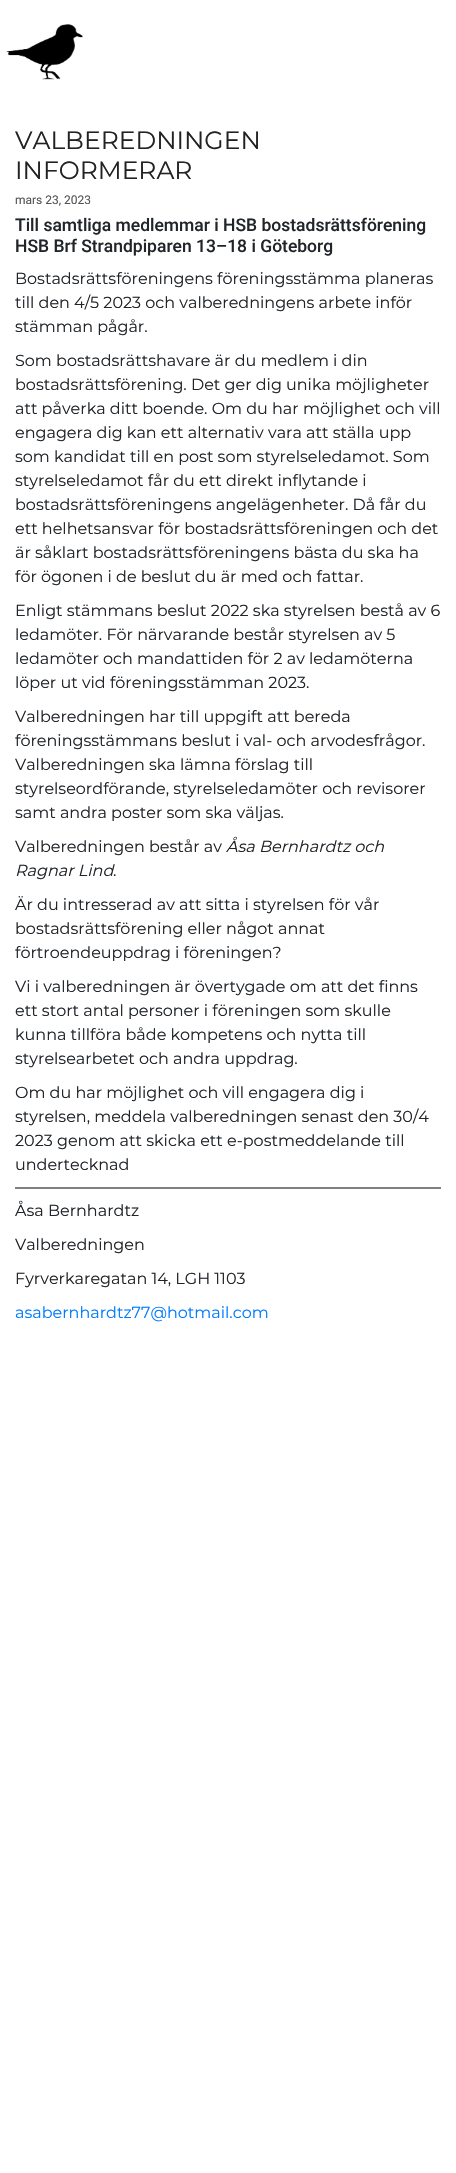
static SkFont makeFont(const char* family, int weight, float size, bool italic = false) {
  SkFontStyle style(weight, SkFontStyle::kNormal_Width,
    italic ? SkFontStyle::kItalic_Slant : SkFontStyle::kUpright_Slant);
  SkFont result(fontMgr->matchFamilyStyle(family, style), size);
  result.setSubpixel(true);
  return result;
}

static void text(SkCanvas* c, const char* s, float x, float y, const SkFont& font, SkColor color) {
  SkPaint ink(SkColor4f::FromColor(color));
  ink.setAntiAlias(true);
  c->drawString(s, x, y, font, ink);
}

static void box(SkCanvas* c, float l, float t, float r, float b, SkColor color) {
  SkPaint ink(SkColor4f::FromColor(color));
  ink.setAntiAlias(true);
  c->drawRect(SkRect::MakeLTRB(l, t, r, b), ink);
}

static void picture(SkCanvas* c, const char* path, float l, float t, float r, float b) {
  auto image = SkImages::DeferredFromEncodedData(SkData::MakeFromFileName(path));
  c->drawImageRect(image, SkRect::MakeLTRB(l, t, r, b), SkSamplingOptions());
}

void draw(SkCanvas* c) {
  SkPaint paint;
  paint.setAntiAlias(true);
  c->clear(0xffffffff);
  picture(c, "img_01.png", 6, 24, 83, 80);
  SkFont face1 = makeFont("Montserrat", 400, 25);
  text(c, "VALBEREDNINGEN", 15, 149, face1, 0xff222222);
  text(c, "INFORMERAR", 15, 179, face1, 0xff222222);
  SkFont face2 = makeFont("Roboto", 400, 12);
  text(c, "mars 23, 2023", 15, 204, face2, 0xff555555);
  SkFont face3 = makeFont("Roboto", 500, 17.5f);
  text(c, "Till samtliga medlemmar i HSB bostadsrättsförening", 15, 231, face3, 0xff212529);
  text(c, "HSB Brf Strandpiparen 13–18 i Göteborg", 15, 252, face3, 0xff212529);
  SkFont face4 = makeFont("Montserrat", 400, 16);
  text(c, "Bostadsrättsföreningens föreningsstämma planeras", 15, 284, face4, 0xff212529);
  text(c, "till den 4/5 2023 och valberedningens arbete inför", 15, 308, face4, 0xff212529);
  text(c, "stämman pågår.", 15, 332, face4, 0xff212529);
  text(c, "Som bostadsrättshavare är du medlem i din", 15, 366, face4, 0xff212529);
  text(c, "bostadsrättsförening. Det ger dig unika möjligheter", 15, 390, face4, 0xff212529);
  text(c, "att påverka ditt boende. Om du har möjlighet och vill", 15, 414, face4, 0xff212529);
  text(c, "engagera dig kan ett alternativ vara att ställa upp", 15, 438, face4, 0xff212529);
  text(c, "som kandidat till en post som styrelseledamot. Som", 15, 462, face4, 0xff212529);
  text(c, "styrelseledamot får du ett direkt inflytande i", 15, 486, face4, 0xff212529);
  text(c, "bostadsrättsföreningens angelägenheter. Då får du", 15, 510, face4, 0xff212529);
  text(c, "ett helhetsansvar för bostadsrättsföreningen och det", 15, 534, face4, 0xff212529);
  text(c, "är såklart bostadsrättsföreningens bästa du ska ha", 15, 558, face4, 0xff212529);
  text(c, "för ögonen i de beslut du är med och fattar.", 15, 582, face4, 0xff212529);
  text(c, "Enligt stämmans beslut 2022 ska styrelsen bestå av 6", 15, 616, face4, 0xff212529);
  text(c, "ledamöter. För närvarande består styrelsen av 5", 15, 640, face4, 0xff212529);
  text(c, "ledamöter och mandattiden för 2 av ledamöterna", 15, 664, face4, 0xff212529);
  text(c, "löper ut vid föreningsstämman 2023.", 15, 688, face4, 0xff212529);
  text(c, "Valberedningen har till uppgift att bereda", 15, 722, face4, 0xff212529);
  text(c, "föreningsstämmans beslut i val- och arvodesfrågor.", 15, 746, face4, 0xff212529);
  text(c, "Valberedningen ska lämna förslag till", 15, 770, face4, 0xff212529);
  text(c, "styrelseordförande, styrelseledamöter och revisorer", 15, 794, face4, 0xff212529);
  text(c, "samt andra poster som ska väljas.", 15, 818, face4, 0xff212529);
  text(c, "Valberedningen består av", 15, 852, face4, 0xff212529);
  SkFont face5 = makeFont("Montserrat", 400, 16, true);
  text(c, "Åsa Bernhardtz och", 226, 852, face5, 0xff212529);
  text(c, "Ragnar Lind", 15, 876, face5, 0xff212529);
  text(c, ".", 113, 876, face4, 0xff212529);
  text(c, "Är du intresserad av att sitta i styrelsen för vår", 15, 910, face4, 0xff212529);
  text(c, "bostadsrättsförening eller något annat", 15, 934, face4, 0xff212529);
  text(c, "förtroendeuppdrag i föreningen?", 15, 958, face4, 0xff212529);
  text(c, "Vi i valberedningen är övertygade om att det finns", 15, 992, face4, 0xff212529);
  text(c, "ett stort antal personer i föreningen som skulle", 15, 1016, face4, 0xff212529);
  text(c, "kunna tillföra både kompetens och nytta till", 15, 1040, face4, 0xff212529);
  text(c, "styrelsearbetet och andra uppdrag.", 15, 1064, face4, 0xff212529);
  text(c, "Om du har möjlighet och vill engagera dig i", 15, 1098, face4, 0xff212529);
  text(c, "styrelsen, meddela valberedningen senast den 30/4", 15, 1122, face4, 0xff212529);
  text(c, "2023 genom att skicka ett e-postmeddelande till", 15, 1146, face4, 0xff212529);
  text(c, "undertecknad", 15, 1170, face4, 0xff212529);
  box(c, 15, 1187, 441, 1189, 0xff808080);
  text(c, "Åsa Bernhardtz", 15, 1216, face4, 0xff212529);
  text(c, "Valberedningen", 15, 1250, face4, 0xff212529);
  text(c, "Fyrverkaregatan 14, LGH 1103", 15, 1284, face4, 0xff212529);
  text(c, "asabernhardtz77@hotmail.com", 15, 1318, face4, 0xff007bff);
}
